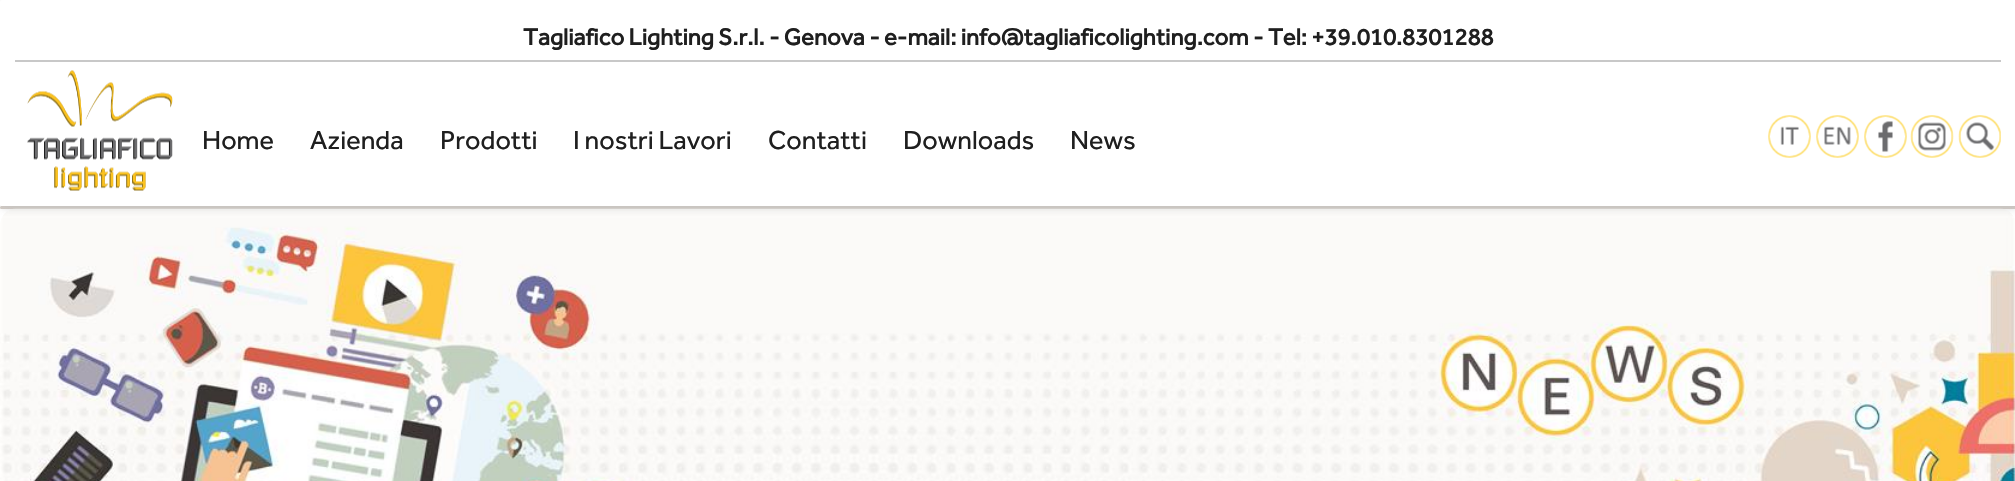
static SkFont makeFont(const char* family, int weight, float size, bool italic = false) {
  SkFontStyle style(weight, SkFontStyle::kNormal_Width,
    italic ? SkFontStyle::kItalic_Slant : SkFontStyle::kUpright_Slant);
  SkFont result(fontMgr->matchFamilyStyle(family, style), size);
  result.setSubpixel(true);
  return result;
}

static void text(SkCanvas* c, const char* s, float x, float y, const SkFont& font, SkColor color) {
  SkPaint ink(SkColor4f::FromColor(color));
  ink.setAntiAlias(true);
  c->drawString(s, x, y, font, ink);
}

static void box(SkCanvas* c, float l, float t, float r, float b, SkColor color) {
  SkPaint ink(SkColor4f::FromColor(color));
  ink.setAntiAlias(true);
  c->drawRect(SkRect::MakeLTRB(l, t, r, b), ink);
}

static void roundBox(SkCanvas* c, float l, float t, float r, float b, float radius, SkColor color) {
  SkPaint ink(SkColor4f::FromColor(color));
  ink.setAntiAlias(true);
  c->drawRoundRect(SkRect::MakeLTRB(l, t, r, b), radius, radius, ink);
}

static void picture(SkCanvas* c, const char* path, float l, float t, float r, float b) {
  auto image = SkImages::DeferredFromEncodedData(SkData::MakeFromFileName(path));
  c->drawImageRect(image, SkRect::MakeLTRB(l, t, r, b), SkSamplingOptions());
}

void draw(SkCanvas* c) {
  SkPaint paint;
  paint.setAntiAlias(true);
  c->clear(0xffffffff);
  roundBox(c, 0, 206, 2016, 209, 1.5f, 0xffd1c9c2);
  picture(c, "img_07.png", 0, 208, 2015, 481);
  paint.setColor(0xe0c0c0c0);
  paint.setMaskFilter(SkMaskFilter::MakeBlur(kNormal_SkBlurStyle, 4));
  c->drawRoundRect(SkRect::MakeLTRB(2, 2, 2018, 207), 1.5f, 1.5f, paint);
  paint.setMaskFilter(nullptr);
  roundBox(c, 0, 0, 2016, 206, 1.5f, 0xffffffff);
  box(c, 15, 60, 2001, 62, 0xffc8c8c8);
  SkFont face1 = makeFont("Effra", 700, 24);
  text(c, "Tagliafico Lighting S.r.l. - Genova - e-mail: info@tagliaficolighting.com - Tel: +39.010.8301288", 523, 45, face1, 0xff1f1f1f);
  picture(c, "img_01.png", 27, 70, 173, 191);
  SkFont face2 = makeFont("Effra", 400, 27);
  text(c, "Home", 202, 149, face2, 0xff1f1f1f);
  text(c, "Azienda", 310, 149, face2, 0xff1f1f1f);
  text(c, "Prodotti", 440, 149, face2, 0xff1f1f1f);
  text(c, "I nostri Lavori", 573, 149, face2, 0xff1f1f1f);
  text(c, "Contatti", 768, 149, face2, 0xff1f1f1f);
  text(c, "Downloads", 903, 149, face2, 0xff1f1f1f);
  text(c, "News", 1070, 149, face2, 0xff1f1f1f);
  picture(c, "img_02.png", 1768, 115, 1811, 158);
  picture(c, "img_03.png", 1816, 115, 1859, 158);
  picture(c, "img_04.png", 1864, 115, 1907, 158);
  picture(c, "img_05.png", 1910, 115, 1954, 158);
  picture(c, "img_06.png", 1958, 115, 2001, 158);
}
